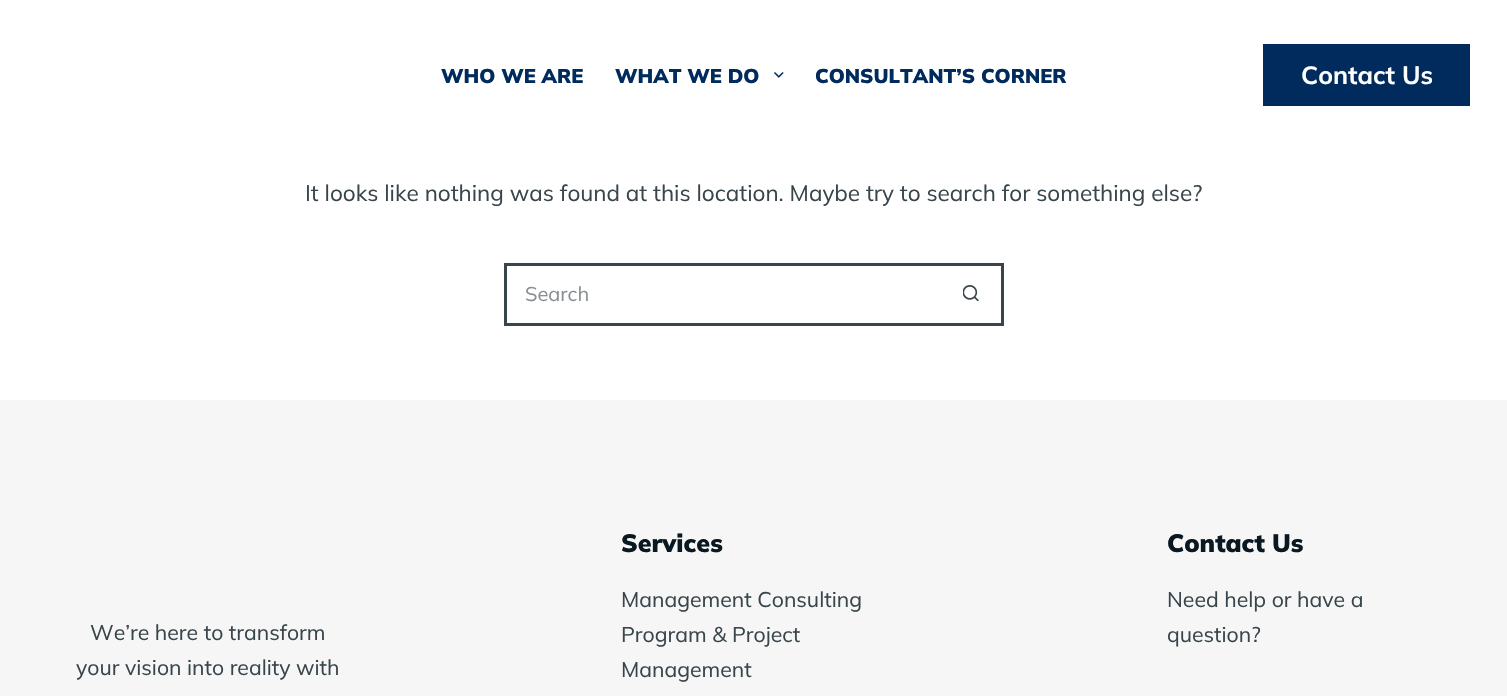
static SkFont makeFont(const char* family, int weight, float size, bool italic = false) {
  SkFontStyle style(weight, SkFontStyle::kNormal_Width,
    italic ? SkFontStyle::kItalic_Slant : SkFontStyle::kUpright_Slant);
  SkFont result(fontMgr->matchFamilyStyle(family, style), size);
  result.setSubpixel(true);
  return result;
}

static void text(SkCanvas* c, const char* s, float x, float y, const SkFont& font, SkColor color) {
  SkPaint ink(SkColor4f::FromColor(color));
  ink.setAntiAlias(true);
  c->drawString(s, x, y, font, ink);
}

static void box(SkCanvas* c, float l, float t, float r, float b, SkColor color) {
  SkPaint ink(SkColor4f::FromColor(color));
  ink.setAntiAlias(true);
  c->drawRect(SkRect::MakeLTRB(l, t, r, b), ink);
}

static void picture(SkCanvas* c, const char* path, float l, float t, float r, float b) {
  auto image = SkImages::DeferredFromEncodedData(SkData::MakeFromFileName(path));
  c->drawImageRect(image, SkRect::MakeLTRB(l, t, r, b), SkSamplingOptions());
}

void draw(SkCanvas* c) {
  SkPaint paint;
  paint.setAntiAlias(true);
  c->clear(0xffffffff);
  SkFont face1 = makeFont("Mulish", 900, 20);
  text(c, "WHO WE ARE", 441, 83, face1, 0xff012b5c);
  text(c, "WHAT WE DO", 615, 83, face1, 0xff012b5c);
  picture(c, "img_01.png", 774, 72, 784, 78);
  text(c, "CONSULTANT’S CORNER", 815, 83, face1, 0xff012b5c);
  box(c, 1263, 44, 1470, 106, 0xff012b5c);
  SkFont face2 = makeFont("Mulish", 700, 25);
  text(c, "Contact Us", 1301, 84, face2, 0xffffffff);
  SkFont face3 = makeFont("Mulish", 400, 22.5f);
  text(c, "It looks like nothing was found at this location. Maybe try to search for something else?", 305, 201, face3, 0xff38454a);
  box(c, 504, 263, 1004, 266, 0xff38454a);
  box(c, 504, 323, 941, 326, 0xff38454a);
  box(c, 504, 263, 507, 325, 0xff38454a);
  SkFont face4 = makeFont("Mulish", 400, 20);
  text(c, "Search", 525, 301, face4, 0xff888f92);
  box(c, 1001, 263, 1004, 325, 0xff38454a);
  box(c, 941, 323, 1004, 326, 0xff38454a);
  picture(c, "img_02.png", 963, 285, 979, 301);
  box(c, 0, 400, 1507, 696, 0xfff6f6f6);
  SkFont face5 = makeFont("Mulish", 400, 21.25f);
  text(c, "We’re here to transform", 90, 640, face5, 0xff38454a);
  text(c, "your vision into reality with", 76, 675, face5, 0xff38454a);
  SkFont face6 = makeFont("Mulish", 900, 25);
  text(c, "Services", 621, 552, face6, 0xff0a1821);
  text(c, "Management Consulting", 621, 607, face5, 0xff38454a);
  text(c, "Program & Project", 621, 642, face5, 0xff38454a);
  text(c, "Management", 621, 677, face5, 0xff38454a);
  text(c, "Contact Us", 1167, 552, face6, 0xff0a1821);
  text(c, "Need help or have a", 1167, 607, face5, 0xff38454a);
  text(c, "question?", 1167, 642, face5, 0xff38454a);
}
